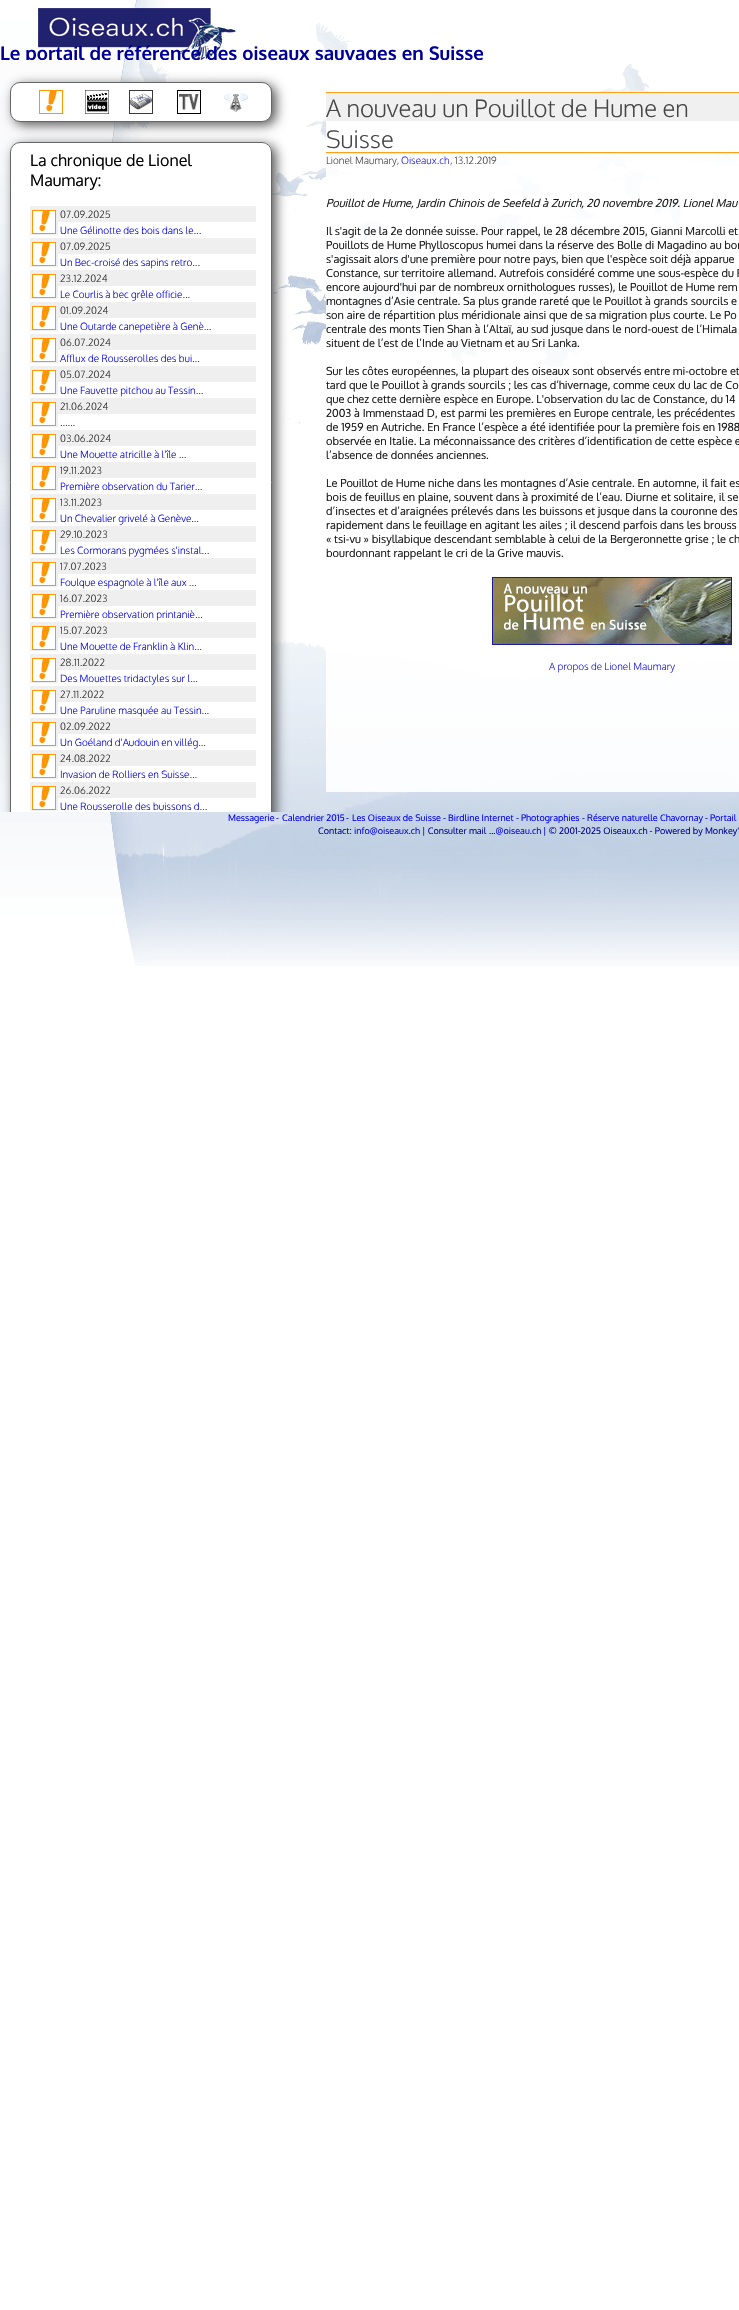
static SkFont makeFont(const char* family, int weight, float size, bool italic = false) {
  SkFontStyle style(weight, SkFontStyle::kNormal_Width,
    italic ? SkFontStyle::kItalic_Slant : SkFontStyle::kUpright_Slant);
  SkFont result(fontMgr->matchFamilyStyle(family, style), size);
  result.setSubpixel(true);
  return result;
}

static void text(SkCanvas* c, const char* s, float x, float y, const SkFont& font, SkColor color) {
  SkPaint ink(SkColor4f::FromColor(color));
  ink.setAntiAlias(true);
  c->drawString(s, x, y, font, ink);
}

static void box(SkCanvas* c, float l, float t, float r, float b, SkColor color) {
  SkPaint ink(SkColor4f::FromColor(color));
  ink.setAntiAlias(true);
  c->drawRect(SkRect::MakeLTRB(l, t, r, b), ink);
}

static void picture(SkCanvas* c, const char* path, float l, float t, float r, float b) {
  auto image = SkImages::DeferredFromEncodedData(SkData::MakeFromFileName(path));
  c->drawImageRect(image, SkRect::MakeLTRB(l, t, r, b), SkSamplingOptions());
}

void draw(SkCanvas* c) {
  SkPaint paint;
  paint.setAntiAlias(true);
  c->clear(0xffffffff);
  picture(c, "img_01.png", 0, 0, 739, 966);
  picture(c, "img_02.png", 38, 8, 236, 60);
  c->save();
  c->clipRect(SkRect::MakeLTRB(0, 0, 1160, 60));
  SkFont face1 = makeFont("Oxygen", 700, 18.75f);
  text(c, "Le portail de référence des oiseaux sauvages en Suisse", 0, 60, face1, 0xff000099);
  c->restore();
  paint.setColor(0xff555555);
  paint.setMaskFilter(SkMaskFilter::MakeBlur(kNormal_SkBlurStyle, 6));
  c->drawRoundRect(SkRect::MakeLTRB(14, 85, 276, 125), 10, 10, paint);
  paint.setMaskFilter(nullptr);
  paint.setColor(0xffffffff);
  c->drawRoundRect(SkRect::MakeLTRB(10.5f, 82.5f, 271.5f, 121.5f), 9.5f, 9.5f, paint);
  paint.setStyle(SkPaint::kStroke_Style);
  paint.setStrokeWidth(1);
  paint.setColor(0xff666666);
  c->drawRoundRect(SkRect::MakeLTRB(10.5f, 82.5f, 271.5f, 121.5f), 9.5f, 9.5f, paint);
  picture(c, "img_03.png", 39, 90, 63, 114);
  picture(c, "img_04.png", 85, 90, 109, 114);
  picture(c, "img_05.png", 129, 90, 153, 114);
  picture(c, "img_06.png", 177, 90, 201, 114);
  picture(c, "img_07.png", 224, 93, 248, 112);
  c->save();
  c->clipRect(SkRect::MakeLTRB(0, 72, 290, 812));
  paint.setStyle(SkPaint::kFill_Style);
  paint.setColor(0xff555555);
  paint.setMaskFilter(SkMaskFilter::MakeBlur(kNormal_SkBlurStyle, 6));
  c->drawRoundRect(SkRect::MakeLTRB(14, 145, 276, 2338), 10, 10, paint);
  paint.setMaskFilter(nullptr);
  c->restore();
  paint.setColor(0xffffffff);
  c->drawPath(SkPathBuilder().moveTo(20, 142).lineTo(262, 142).cubicTo(267.5f, 142, 272, 146.5f, 272, 152).lineTo(272, 812).lineTo(10, 812).lineTo(10, 152).cubicTo(10, 146.5f, 14.5f, 142, 20, 142).close().detach(), paint);
  SkFont face2 = makeFont("Oxygen", 400, 9);
  text(c, "Messagerie", 228, 821, face2, 0xff0000ee);
  c->save();
  c->clipRect(SkRect::MakeLTRB(0, 72, 290, 812));
  paint.setStyle(SkPaint::kStroke_Style);
  paint.setColor(0xff666666);
  c->drawRoundRect(SkRect::MakeLTRB(10.5f, 142.5f, 271.5f, 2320.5f), 9.5f, 9.5f, paint);
  c->restore();
  SkFont face3 = makeFont("Oxygen", 400, 16);
  text(c, "La chronique de Lionel", 30, 166, face3, 0xff000000);
  text(c, "Maumary:", 30, 186, face3, 0xff000000);
  box(c, 30, 206, 58, 235, 0xffefefef);
  picture(c, "img_03.png", 32, 210, 56, 234);
  box(c, 58, 206, 256, 222, 0xffefefef);
  SkFont face4 = makeFont("Oxygen", 300, 10);
  text(c, "07.09.2025", 60, 218, face4, 0xff333333);
  text(c, "Une Gélinotte des bois dans le...", 60, 234, face4, 0xff0000ee);
  box(c, 30, 238, 58, 267, 0xffefefef);
  picture(c, "img_03.png", 32, 242, 56, 266);
  box(c, 58, 238, 256, 254, 0xffefefef);
  text(c, "07.09.2025", 60, 250, face4, 0xff333333);
  text(c, "Un Bec-croisé des sapins retro...", 60, 266, face4, 0xff0000ee);
  box(c, 30, 270, 58, 299, 0xffefefef);
  picture(c, "img_03.png", 32, 274, 56, 298);
  box(c, 58, 270, 256, 286, 0xffefefef);
  text(c, "23.12.2024", 60, 282, face4, 0xff333333);
  text(c, "Le Courlis à bec grêle officie...", 60, 298, face4, 0xff0000ee);
  box(c, 30, 302, 58, 331, 0xffefefef);
  picture(c, "img_03.png", 32, 306, 56, 330);
  box(c, 58, 302, 256, 318, 0xffefefef);
  text(c, "01.09.2024", 60, 314, face4, 0xff333333);
  text(c, "Une Outarde canepetière à Genè...", 60, 330, face4, 0xff0000ee);
  box(c, 30, 334, 58, 363, 0xffefefef);
  picture(c, "img_03.png", 32, 338, 56, 362);
  box(c, 58, 334, 256, 350, 0xffefefef);
  text(c, "06.07.2024", 60, 346, face4, 0xff333333);
  text(c, "Afflux de Rousserolles des bui...", 60, 362, face4, 0xff0000ee);
  box(c, 30, 366, 58, 395, 0xffefefef);
  picture(c, "img_03.png", 32, 370, 56, 394);
  box(c, 58, 366, 256, 382, 0xffefefef);
  text(c, "05.07.2024", 60, 378, face4, 0xff333333);
  text(c, "Une Fauvette pitchou au Tessin...", 60, 394, face4, 0xff0000ee);
  box(c, 30, 398, 58, 427, 0xffefefef);
  picture(c, "img_03.png", 32, 402, 56, 426);
  box(c, 58, 398, 256, 414, 0xffefefef);
  text(c, "21.06.2024", 60, 410, face4, 0xff333333);
  text(c, "......", 60, 426, face4, 0xff0000ee);
  box(c, 30, 430, 58, 459, 0xffefefef);
  picture(c, "img_03.png", 32, 434, 56, 458);
  box(c, 58, 430, 256, 446, 0xffefefef);
  text(c, "03.06.2024", 60, 442, face4, 0xff333333);
  text(c, "Une Mouette atricille à l'île ...", 60, 458, face4, 0xff0000ee);
  box(c, 30, 462, 58, 491, 0xffefefef);
  picture(c, "img_03.png", 32, 466, 56, 490);
  box(c, 58, 462, 256, 478, 0xffefefef);
  text(c, "19.11.2023", 60, 474, face4, 0xff333333);
  text(c, "Première observation du Tarier...", 60, 490, face4, 0xff0000ee);
  box(c, 30, 494, 58, 523, 0xffefefef);
  picture(c, "img_03.png", 32, 498, 56, 522);
  box(c, 58, 494, 256, 510, 0xffefefef);
  text(c, "13.11.2023", 60, 506, face4, 0xff333333);
  text(c, "Un Chevalier grivelé à Genève...", 60, 522, face4, 0xff0000ee);
  box(c, 30, 526, 58, 555, 0xffefefef);
  picture(c, "img_03.png", 32, 530, 56, 554);
  box(c, 58, 526, 256, 542, 0xffefefef);
  text(c, "29.10.2023", 60, 538, face4, 0xff333333);
  text(c, "Les Cormorans pygmées s'instal...", 60, 554, face4, 0xff0000ee);
  box(c, 30, 558, 58, 587, 0xffefefef);
  picture(c, "img_03.png", 32, 562, 56, 586);
  box(c, 58, 558, 256, 574, 0xffefefef);
  text(c, "17.07.2023", 60, 570, face4, 0xff333333);
  text(c, "Foulque espagnole à l'île aux ...", 60, 586, face4, 0xff0000ee);
  box(c, 30, 590, 58, 619, 0xffefefef);
  picture(c, "img_03.png", 32, 594, 56, 618);
  box(c, 58, 590, 256, 606, 0xffefefef);
  text(c, "16.07.2023", 60, 602, face4, 0xff333333);
  text(c, "Première observation printaniè...", 60, 618, face4, 0xff0000ee);
  box(c, 30, 622, 58, 651, 0xffefefef);
  picture(c, "img_03.png", 32, 626, 56, 650);
  box(c, 58, 622, 256, 638, 0xffefefef);
  text(c, "15.07.2023", 60, 634, face4, 0xff333333);
  text(c, "Une Mouette de Franklin à Klin...", 60, 650, face4, 0xff0000ee);
  box(c, 30, 654, 58, 683, 0xffefefef);
  picture(c, "img_03.png", 32, 658, 56, 682);
  box(c, 58, 654, 256, 670, 0xffefefef);
  text(c, "28.11.2022", 60, 666, face4, 0xff333333);
  text(c, "Des Mouettes tridactyles sur l...", 60, 682, face4, 0xff0000ee);
  box(c, 30, 686, 58, 715, 0xffefefef);
  picture(c, "img_03.png", 32, 690, 56, 714);
  box(c, 58, 686, 256, 702, 0xffefefef);
  text(c, "27.11.2022", 60, 698, face4, 0xff333333);
  text(c, "Une Paruline masquée au Tessin...", 60, 714, face4, 0xff0000ee);
  box(c, 30, 718, 58, 747, 0xffefefef);
  picture(c, "img_03.png", 32, 722, 56, 746);
  box(c, 58, 718, 256, 734, 0xffefefef);
  text(c, "02.09.2022", 60, 730, face4, 0xff333333);
  text(c, "Un Goéland d'Audouin en villég...", 60, 746, face4, 0xff0000ee);
  box(c, 30, 750, 58, 779, 0xffefefef);
  picture(c, "img_03.png", 32, 754, 56, 778);
  box(c, 58, 750, 256, 766, 0xffefefef);
  text(c, "24.08.2022", 60, 762, face4, 0xff333333);
  text(c, "Invasion de Rolliers en Suisse...", 60, 778, face4, 0xff0000ee);
  box(c, 30, 782, 58, 811, 0xffefefef);
  picture(c, "img_03.png", 32, 786, 56, 810);
  box(c, 58, 782, 256, 798, 0xffefefef);
  text(c, "26.06.2022", 60, 794, face4, 0xff333333);
  text(c, "Une Rousserolle des buissons d...", 60, 810, face4, 0xff0000ee);
  box(c, 326, 92, 739, 792, 0xe6ffffff);
  picture(c, "img_08.png", 326, 92, 739, 154);
  SkFont face5 = makeFont("Oxygen", 300, 24);
  text(c, "A nouveau un Pouillot de Hume en", 326, 117, face5, 0xff464646);
  text(c, "Suisse", 326, 148, face5, 0xff464646);
  text(c, "Lionel Maumary,", 326, 164, face4, 0xff464646);
  text(c, "Oiseaux.ch", 401, 164, face4, 0xff1a1af0);
  text(c, ", 13.12.2019", 450, 164, face4, 0xff464646);
  SkFont face6 = makeFont("Oxygen", 400, 11, true);
  text(c, "Pouillot de Hume, Jardin Chinois de Seefeld à Zurich, 20 novembre 2019. Lionel Mau", 326, 207, face6, 0xff191919);
  SkFont face7 = makeFont("Oxygen", 400, 11);
  text(c, "Il s'agit de la 2e donnée suisse. Pour rappel, le 28 décembre 2015, Gianni Marcolli et", 326, 235, face7, 0xff191919);
  text(c, "Pouillots de Hume Phylloscopus humei dans la réserve des Bolle di Magadino au bor", 326, 249, face7, 0xff191919);
  text(c, "s'agissait alors d'une première pour notre pays, bien que l'espèce soit déjà apparue", 326, 263, face7, 0xff191919);
  text(c, "Constance, sur territoire allemand. Autrefois considéré comme une sous-espèce du P", 326, 277, face7, 0xff191919);
  text(c, "encore aujourd'hui par de nombreux ornithologues russes), le Pouillot de Hume rem", 326, 291, face7, 0xff191919);
  text(c, "montagnes d’Asie centrale. Sa plus grande rareté que le Pouillot à grands sourcils e", 326, 305, face7, 0xff191919);
  text(c, "son aire de répartition plus méridionale ainsi que de sa migration plus courte. Le Po", 326, 319, face7, 0xff191919);
  text(c, "centrale des monts Tien Shan à l’Altaï, au sud jusque dans le nord-ouest de l’Himala", 326, 333, face7, 0xff191919);
  text(c, "situent de l’est de l’Inde au Vietnam et au Sri Lanka.", 326, 347, face7, 0xff191919);
  text(c, "Sur les côtes européennes, la plupart des oiseaux sont observés entre mi-octobre et", 326, 375, face7, 0xff191919);
  text(c, "tard que le Pouillot à grands sourcils ; les cas d’hivernage, comme ceux du lac de Co", 326, 389, face7, 0xff191919);
  text(c, "que chez cette dernière espèce en Europe. L'observation du lac de Constance, du 14", 326, 403, face7, 0xff191919);
  text(c, "2003 à Immenstaad D, est parmi les premières en Europe centrale, les précédentes", 326, 417, face7, 0xff191919);
  text(c, "de 1959 en Autriche. En France l’espèce a été identifiée pour la première fois en 1988", 326, 431, face7, 0xff191919);
  text(c, "observée en Italie. La méconnaissance des critères d’identification de cette espèce e", 326, 445, face7, 0xff191919);
  text(c, "l’absence de données anciennes.", 326, 459, face7, 0xff191919);
  text(c, "Le Pouillot de Hume niche dans les montagnes d’Asie centrale. En automne, il fait es", 326, 487, face7, 0xff191919);
  text(c, "bois de feuillus en plaine, souvent dans à proximité de l’eau. Diurne et solitaire, il se", 326, 501, face7, 0xff191919);
  text(c, "d’insectes et d’araignées prélevés dans les buissons et jusque dans la couronne des", 326, 515, face7, 0xff191919);
  text(c, "rapidement dans le feuillage en agitant les ailes ; il descend parfois dans les brouss", 326, 529, face7, 0xff191919);
  text(c, "« tsi-vu » bisyllabique descendant semblable à celui de la Bergeronnette grise ; le ch", 326, 543, face7, 0xff191919);
  text(c, "bourdonnant rappelant le cri de la Grive mauvis.", 326, 557, face7, 0xff191919);
  paint.setColor(0xff1a1aa3);
  c->drawRect(SkRect::MakeLTRB(492.5f, 577.5f, 731.5f, 644.5f), paint);
  picture(c, "img_09.png", 493, 578, 731, 644);
  text(c, "A propos de Lionel Maumary", 549, 670, face4, 0xff1a1af0);
  text(c, "-", 276, 821, face2, 0xff000099);
  text(c, "Calendrier 2015", 282, 821, face2, 0xff0000ee);
  text(c, "-", 346, 821, face2, 0xff000099);
  text(c, "Les Oiseaux de Suisse", 352, 821, face2, 0xff0000ee);
  text(c, "-", 443, 821, face2, 0xff000099);
  text(c, "Birdline Internet", 448, 821, face2, 0xff0000ee);
  text(c, "-", 516, 821, face2, 0xff000099);
  text(c, "Photographies", 521, 821, face2, 0xff0000ee);
  text(c, "-", 582, 821, face2, 0xff000099);
  text(c, "Réserve naturelle Chavornay", 587, 821, face2, 0xff0000ee);
  text(c, "-", 705, 821, face2, 0xff000099);
  text(c, "Portail", 710, 821, face2, 0xff0000ee);
  text(c, "Contact:", 318, 834, face2, 0xff000099);
  text(c, "info@oiseaux.ch", 354, 834, face2, 0xff0000ee);
  text(c, "| Consulter mail", 422, 834, face2, 0xff000099);
  text(c, "...@oiseau.ch", 489, 834, face2, 0xff0000ee);
  text(c, "| © 2001-2025 Oiseaux.ch - Powered by Monkey'", 543, 834, face2, 0xff000099);
}
